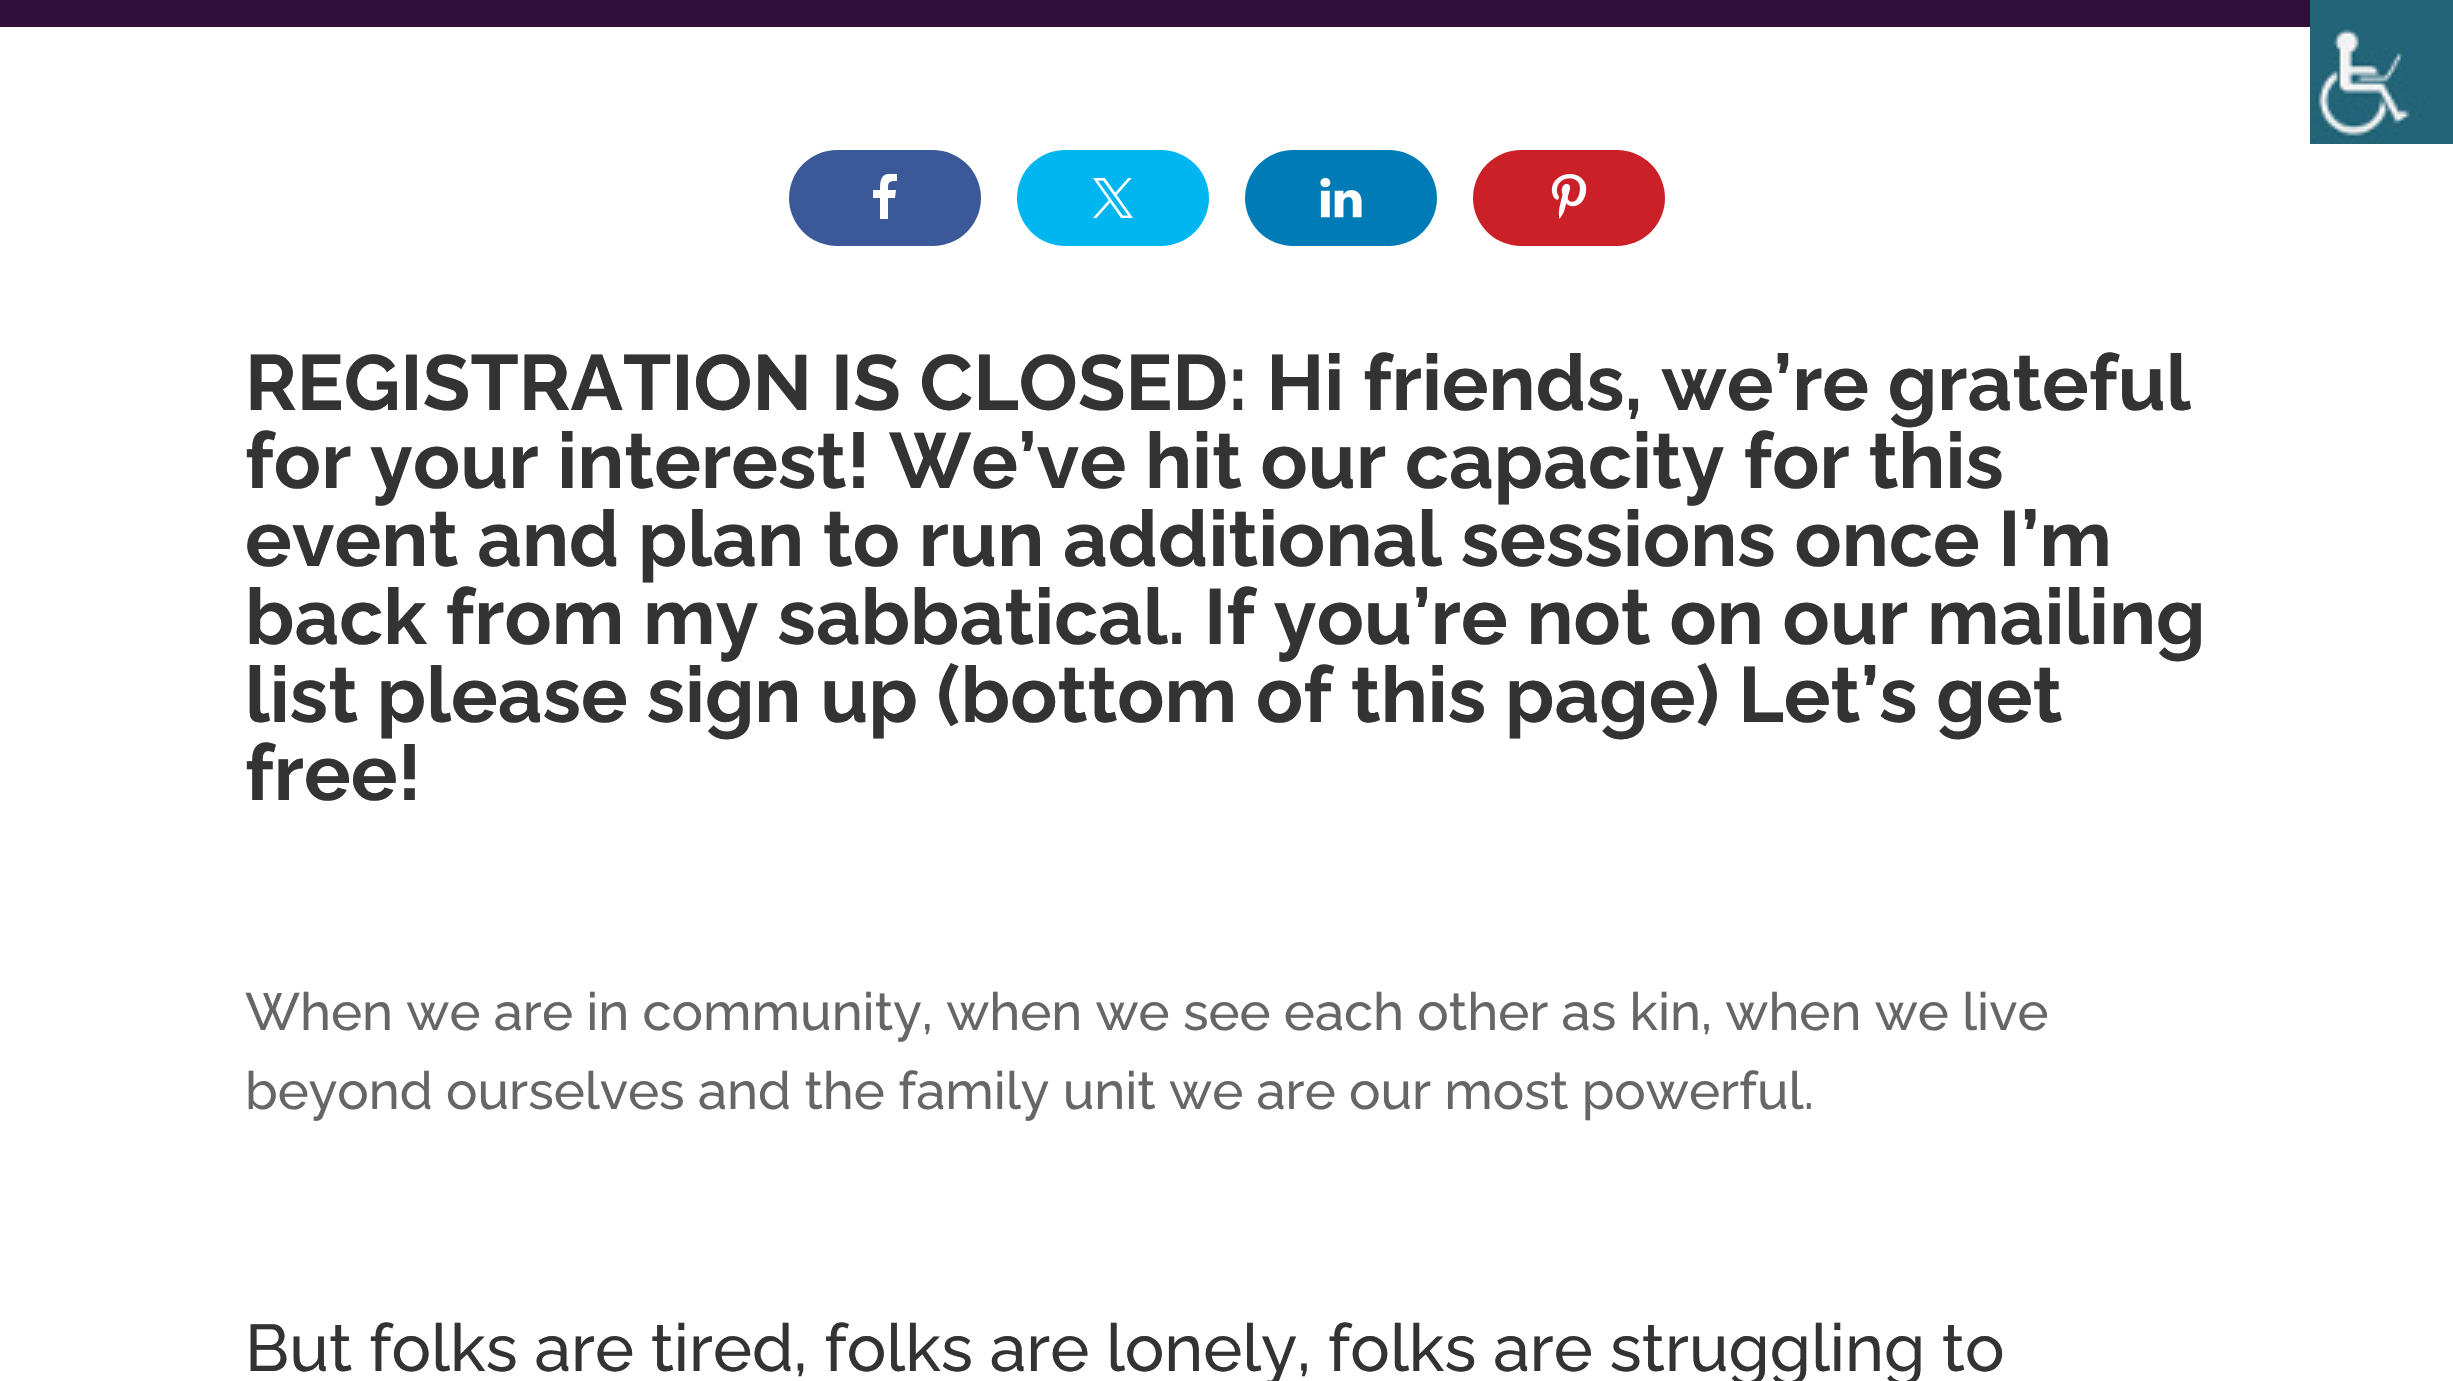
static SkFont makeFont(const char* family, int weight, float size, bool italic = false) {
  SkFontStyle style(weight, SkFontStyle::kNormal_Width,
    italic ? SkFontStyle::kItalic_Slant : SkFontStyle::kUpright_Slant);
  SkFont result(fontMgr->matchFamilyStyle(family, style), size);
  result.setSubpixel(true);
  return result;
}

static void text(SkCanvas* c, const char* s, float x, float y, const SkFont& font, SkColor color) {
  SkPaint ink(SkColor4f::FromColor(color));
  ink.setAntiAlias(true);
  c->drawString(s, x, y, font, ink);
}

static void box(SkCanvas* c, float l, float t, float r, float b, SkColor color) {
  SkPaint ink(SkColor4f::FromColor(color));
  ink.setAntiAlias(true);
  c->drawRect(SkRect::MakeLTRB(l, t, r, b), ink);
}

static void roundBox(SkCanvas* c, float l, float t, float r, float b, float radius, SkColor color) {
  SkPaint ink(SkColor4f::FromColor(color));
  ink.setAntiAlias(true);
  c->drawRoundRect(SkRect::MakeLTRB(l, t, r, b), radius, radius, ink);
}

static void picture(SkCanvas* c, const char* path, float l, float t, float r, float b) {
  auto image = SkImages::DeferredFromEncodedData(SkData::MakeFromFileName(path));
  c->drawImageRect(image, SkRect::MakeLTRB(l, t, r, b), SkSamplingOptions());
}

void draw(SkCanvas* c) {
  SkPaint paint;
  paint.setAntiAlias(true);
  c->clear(0xffffffff);
  picture(c, "img_01.png", 2310, 0, 2453, 144);
  box(c, 0, 0, 2310, 27, 0xff320e3a);
  roundBox(c, 789, 150, 981, 246, 48, 0xff3b5998);
  c->save();
  c->clipRect(SkRect::MakeLTRB(861, 174, 909, 222));
  paint.setColor(0xffffffff);
  c->drawPath(SkPathBuilder().moveTo(897, 174).lineTo(897, 181).cubicTo(888, 181, 888, 182, 888, 190).lineTo(896, 190).lineTo(895, 198).lineTo(888, 198).lineTo(888, 219).lineTo(880, 219).lineTo(880, 198).lineTo(873, 198).lineTo(873, 190).lineTo(880, 190).cubicTo(880, 177, 882, 172, 897, 174).close().detach(), paint);
  c->restore();
  roundBox(c, 1017, 150, 1209, 246, 48, 0xff00b6f1);
  picture(c, "img_02.png", 1093, 178, 1133, 218);
  roundBox(c, 1245, 150, 1437, 246, 48, 0xff007bb6);
  picture(c, "img_03.png", 1320, 178, 1362, 218);
  roundBox(c, 1473, 150, 1665, 246, 48, 0xffcb2027);
  picture(c, "img_04.png", 1551, 174, 1587, 219);
  SkFont face1 = makeFont("Raleway", 700, 78);
  text(c, "REGISTRATION IS CLOSED: Hi friends, we’re grateful", 245, 410, face1, 0xff333333);
  text(c, "for your interest! We’ve hit our capacity for this", 245, 488, face1, 0xff333333);
  text(c, "event and plan to run additional sessions once I’m", 245, 566, face1, 0xff333333);
  text(c, "back from my sabbatical. If you’re not on our mailing", 245, 644, face1, 0xff333333);
  text(c, "list please sign up (bottom of this page) Let’s get", 245, 722, face1, 0xff333333);
  text(c, "free!", 245, 800, face1, 0xff333333);
  SkFont face2 = makeFont("Raleway", 500, 52.5f);
  text(c, "When we are in community, when we see each other as kin, when we live", 245, 1030, face2, 0xff666666);
  text(c, "beyond ourselves and the family unit we are our most powerful.", 245, 1109, face2, 0xff666666);
  SkFont face3 = makeFont("Raleway", 500, 66);
  text(c, "But folks are tired, folks are lonely, folks are struggling to", 245, 1371, face3, 0xff333333);
}
